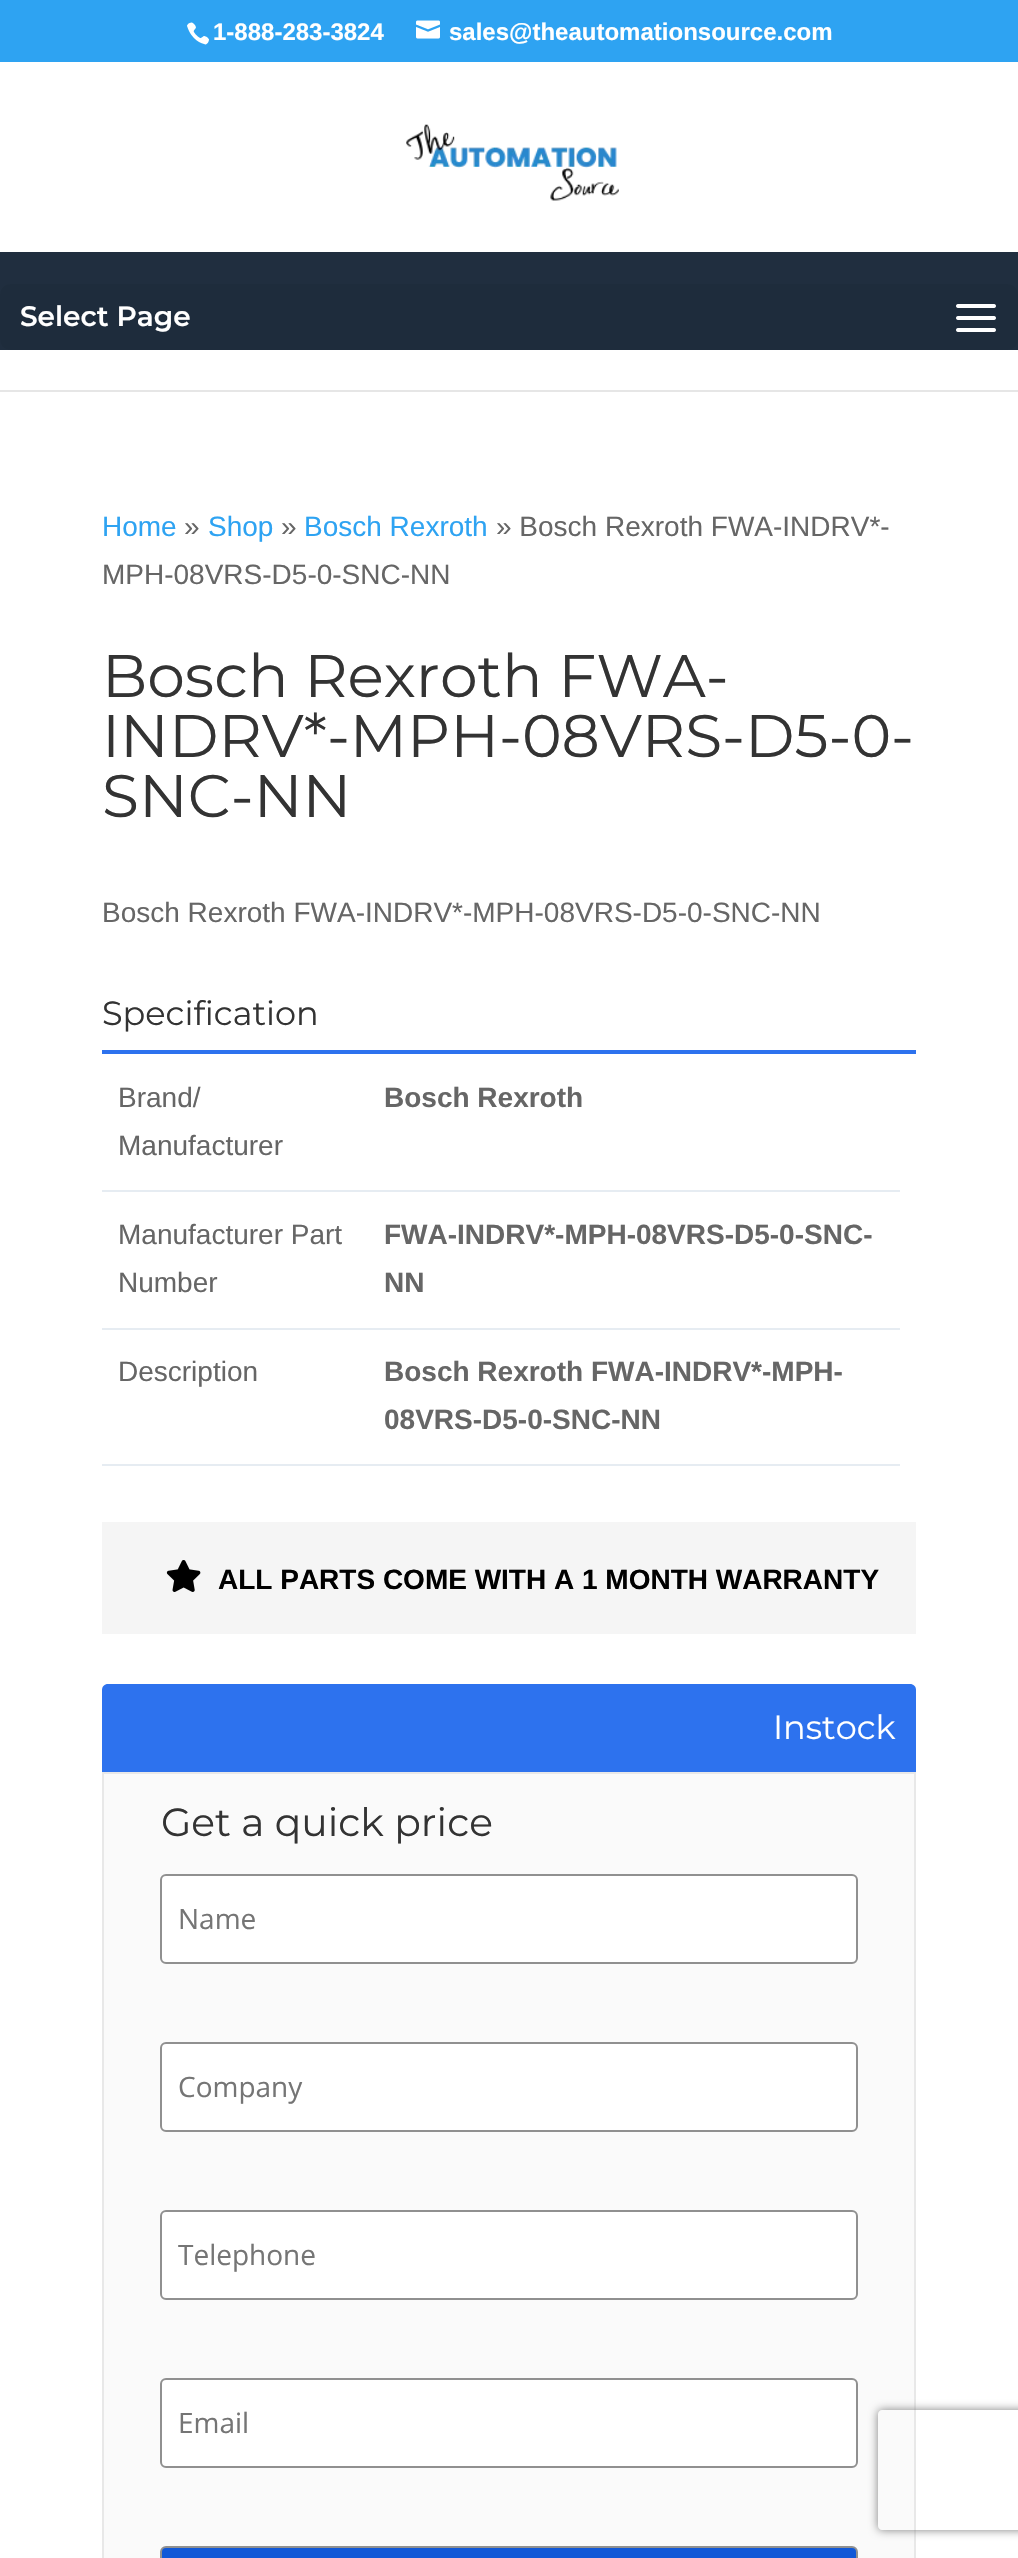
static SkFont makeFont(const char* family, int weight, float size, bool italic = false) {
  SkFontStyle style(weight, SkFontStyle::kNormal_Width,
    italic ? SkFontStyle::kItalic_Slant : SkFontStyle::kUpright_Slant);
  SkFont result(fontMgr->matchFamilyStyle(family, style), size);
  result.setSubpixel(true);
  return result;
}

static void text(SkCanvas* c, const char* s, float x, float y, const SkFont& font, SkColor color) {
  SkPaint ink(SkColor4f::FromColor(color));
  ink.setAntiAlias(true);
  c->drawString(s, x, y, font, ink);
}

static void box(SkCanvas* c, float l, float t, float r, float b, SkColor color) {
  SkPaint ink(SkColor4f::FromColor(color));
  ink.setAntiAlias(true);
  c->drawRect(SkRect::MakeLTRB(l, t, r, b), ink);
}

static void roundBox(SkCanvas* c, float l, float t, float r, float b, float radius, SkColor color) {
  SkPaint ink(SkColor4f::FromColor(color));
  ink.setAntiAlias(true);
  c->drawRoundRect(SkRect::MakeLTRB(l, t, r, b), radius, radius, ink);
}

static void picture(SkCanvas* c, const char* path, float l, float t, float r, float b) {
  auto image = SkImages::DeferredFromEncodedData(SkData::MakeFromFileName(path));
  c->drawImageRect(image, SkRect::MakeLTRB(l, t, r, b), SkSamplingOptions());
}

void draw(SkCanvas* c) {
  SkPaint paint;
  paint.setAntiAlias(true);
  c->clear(0xffffffff);
  box(c, 0, 0, 1018, 62, 0xff2ea3f2);
  picture(c, "img_01.png", 187, 22, 209, 45);
  SkFont face1 = makeFont("Liberation Sans", 700, 24);
  text(c, "1-888-283-3824", 213, 40, face1, 0xffffffff);
  picture(c, "img_02.png", 416, 20, 440, 39);
  text(c, "sales@theautomationsource.com", 449, 40, face1, 0xffffffff);
  box(c, 0, 390, 1018, 392, 0xffe6e6e6);
  picture(c, "img_03.png", 406, 124, 619, 201);
  box(c, 0, 252, 1018, 350, 0xff202e3f);
  roundBox(c, 0, 284, 1018, 350, 10, 0xff1e2c3c);
  SkFont face2 = makeFont("Montserrat", 600, 28);
  text(c, "Select Page", 20, 326, face2, 0xffffffff);
  picture(c, "img_04.png", 956, 304, 996, 332);
  SkFont face3 = makeFont("Liberation Sans", 400, 28);
  text(c, "Home", 102, 536, face3, 0xff2ea3f2);
  text(c, "»", 184, 536, face3, 0xff666666);
  text(c, "Shop", 208, 536, face3, 0xff2ea3f2);
  text(c, "»", 281, 536, face3, 0xff666666);
  text(c, "Bosch Rexroth", 304, 536, face3, 0xff2ea3f2);
  text(c, "» Bosch Rexroth FWA-INDRV*-", 496, 536, face3, 0xff666666);
  text(c, "MPH-08VRS-D5-0-SNC-NN", 102, 584, face3, 0xff666666);
  SkFont face4 = makeFont("Montserrat", 400, 60);
  text(c, "Bosch Rexroth FWA-", 102, 697, face4, 0xff333333);
  text(c, "INDRV*-MPH-08VRS-D5-0-", 102, 757, face4, 0xff333333);
  text(c, "SNC-NN", 102, 817, face4, 0xff333333);
  text(c, "Bosch Rexroth FWA-INDRV*-MPH-08VRS-D5-0-SNC-NN", 102, 922, face3, 0xff666666);
  box(c, 102, 1050, 916, 1054, 0xff2d72ee);
  SkFont face5 = makeFont("Montserrat", 400, 33.5f);
  text(c, "Specification", 102, 1025, face5, 0xff333333);
  box(c, 102, 1190, 900, 1192, 0xffe6ecf2);
  text(c, "Brand/", 118, 1107, face3, 0xff666666);
  text(c, "Manufacturer", 118, 1155, face3, 0xff666666);
  SkFont face6 = makeFont("Liberation Sans", 700, 28);
  text(c, "Bosch Rexroth", 384, 1107, face6, 0xff666666);
  box(c, 102, 1328, 900, 1330, 0xffe6ecf2);
  text(c, "Manufacturer Part", 118, 1244, face3, 0xff666666);
  text(c, "Number", 118, 1292, face3, 0xff666666);
  text(c, "FWA-INDRV*-MPH-08VRS-D5-0-SNC-", 384, 1244, face6, 0xff666666);
  text(c, "NN", 384, 1292, face6, 0xff666666);
  box(c, 102, 1464, 900, 1466, 0xffe6ecf2);
  text(c, "Description", 118, 1381, face3, 0xff666666);
  text(c, "Bosch Rexroth FWA-INDRV*-MPH-", 384, 1381, face6, 0xff666666);
  text(c, "08VRS-D5-0-SNC-NN", 384, 1429, face6, 0xff666666);
  box(c, 102, 1522, 916, 1634, 0xfff5f5f5);
  picture(c, "img_05.png", 166, 1560, 201, 1592);
  text(c, "ALL PARTS COME WITH A 1 MONTH WARRANTY", 218, 1589, face6, 0xff000000);
  paint.setColor(0xff2d72ee);
  c->drawPath(SkPathBuilder().moveTo(108, 1684).lineTo(910, 1684).cubicTo(913.5f, 1684, 916, 1686.5f, 916, 1690).lineTo(916, 1772).lineTo(102, 1772).lineTo(102, 1690).cubicTo(102, 1686.5f, 104.5f, 1684, 108, 1684).close().detach(), paint);
  text(c, "Instock", 773, 1739, face5, 0xffffffff);
  paint.setColor(0xfffafafa);
  c->drawRect(SkRect::MakeLTRB(103, 1773, 915, 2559), paint);
  paint.setStyle(SkPaint::kStroke_Style);
  paint.setStrokeWidth(2);
  paint.setColor(0xffe8e8e8);
  c->drawRect(SkRect::MakeLTRB(103, 1773, 915, 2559), paint);
  SkFont face7 = makeFont("Montserrat", 400, 39.25f);
  text(c, "Get a quick price", 161, 1836, face7, 0xff333333);
  paint.setStyle(SkPaint::kFill_Style);
  paint.setColor(0xffffffff);
  c->drawRoundRect(SkRect::MakeLTRB(161, 1875, 857, 1963), 5, 5, paint);
  paint.setStyle(SkPaint::kStroke_Style);
  paint.setColor(0xff909090);
  c->drawRoundRect(SkRect::MakeLTRB(161, 1875, 857, 1963), 5, 5, paint);
  SkFont face8 = makeFont("Open Sans", 400, 28);
  text(c, "Name", 178, 1929, face8, 0xff757575);
  paint.setStyle(SkPaint::kFill_Style);
  paint.setColor(0xffffffff);
  c->drawRoundRect(SkRect::MakeLTRB(161, 2043, 857, 2131), 5, 5, paint);
  paint.setStyle(SkPaint::kStroke_Style);
  paint.setColor(0xff909090);
  c->drawRoundRect(SkRect::MakeLTRB(161, 2043, 857, 2131), 5, 5, paint);
  text(c, "Company", 178, 2097, face8, 0xff757575);
  paint.setStyle(SkPaint::kFill_Style);
  paint.setColor(0xffffffff);
  c->drawRoundRect(SkRect::MakeLTRB(161, 2211, 857, 2299), 5, 5, paint);
  paint.setStyle(SkPaint::kStroke_Style);
  paint.setColor(0xff909090);
  c->drawRoundRect(SkRect::MakeLTRB(161, 2211, 857, 2299), 5, 5, paint);
  text(c, "Telephone", 178, 2265, face8, 0xff757575);
  paint.setStyle(SkPaint::kFill_Style);
  paint.setColor(0xffffffff);
  c->drawRoundRect(SkRect::MakeLTRB(161, 2379, 857, 2467), 5, 5, paint);
  paint.setStyle(SkPaint::kStroke_Style);
  paint.setColor(0xff909090);
  c->drawRoundRect(SkRect::MakeLTRB(161, 2379, 857, 2467), 5, 5, paint);
  text(c, "Email", 178, 2433, face8, 0xff757575);
  paint.setStyle(SkPaint::kFill_Style);
  paint.setColor(0xff1158d7);
  c->drawRoundRect(SkRect::MakeLTRB(161, 2547, 857, 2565), 5, 5, paint);
  paint.setStyle(SkPaint::kStroke_Style);
  paint.setColor(0xff909090);
  c->drawRoundRect(SkRect::MakeLTRB(161, 2547, 857, 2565), 5, 5, paint);
  c->save();
  c->clipPath(SkPathBuilder(SkPathFillType::kEvenOdd).moveTo(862, 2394).lineTo(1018, 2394).lineTo(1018, 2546).lineTo(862, 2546).close().moveTo(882, 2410).lineTo(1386, 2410).cubicTo(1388, 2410, 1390, 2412, 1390, 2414).lineTo(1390, 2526).cubicTo(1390, 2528, 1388, 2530, 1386, 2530).lineTo(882, 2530).cubicTo(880, 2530, 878, 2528, 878, 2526).lineTo(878, 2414).cubicTo(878, 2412, 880, 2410, 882, 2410).close().detach(), true);
  paint.setStyle(SkPaint::kFill_Style);
  paint.setColor(0xff808080);
  paint.setMaskFilter(SkMaskFilter::MakeBlur(kNormal_SkBlurStyle, 5));
  c->drawRoundRect(SkRect::MakeLTRB(878, 2410, 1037, 2530), 4, 4, paint);
  paint.setMaskFilter(nullptr);
  c->restore();
}
